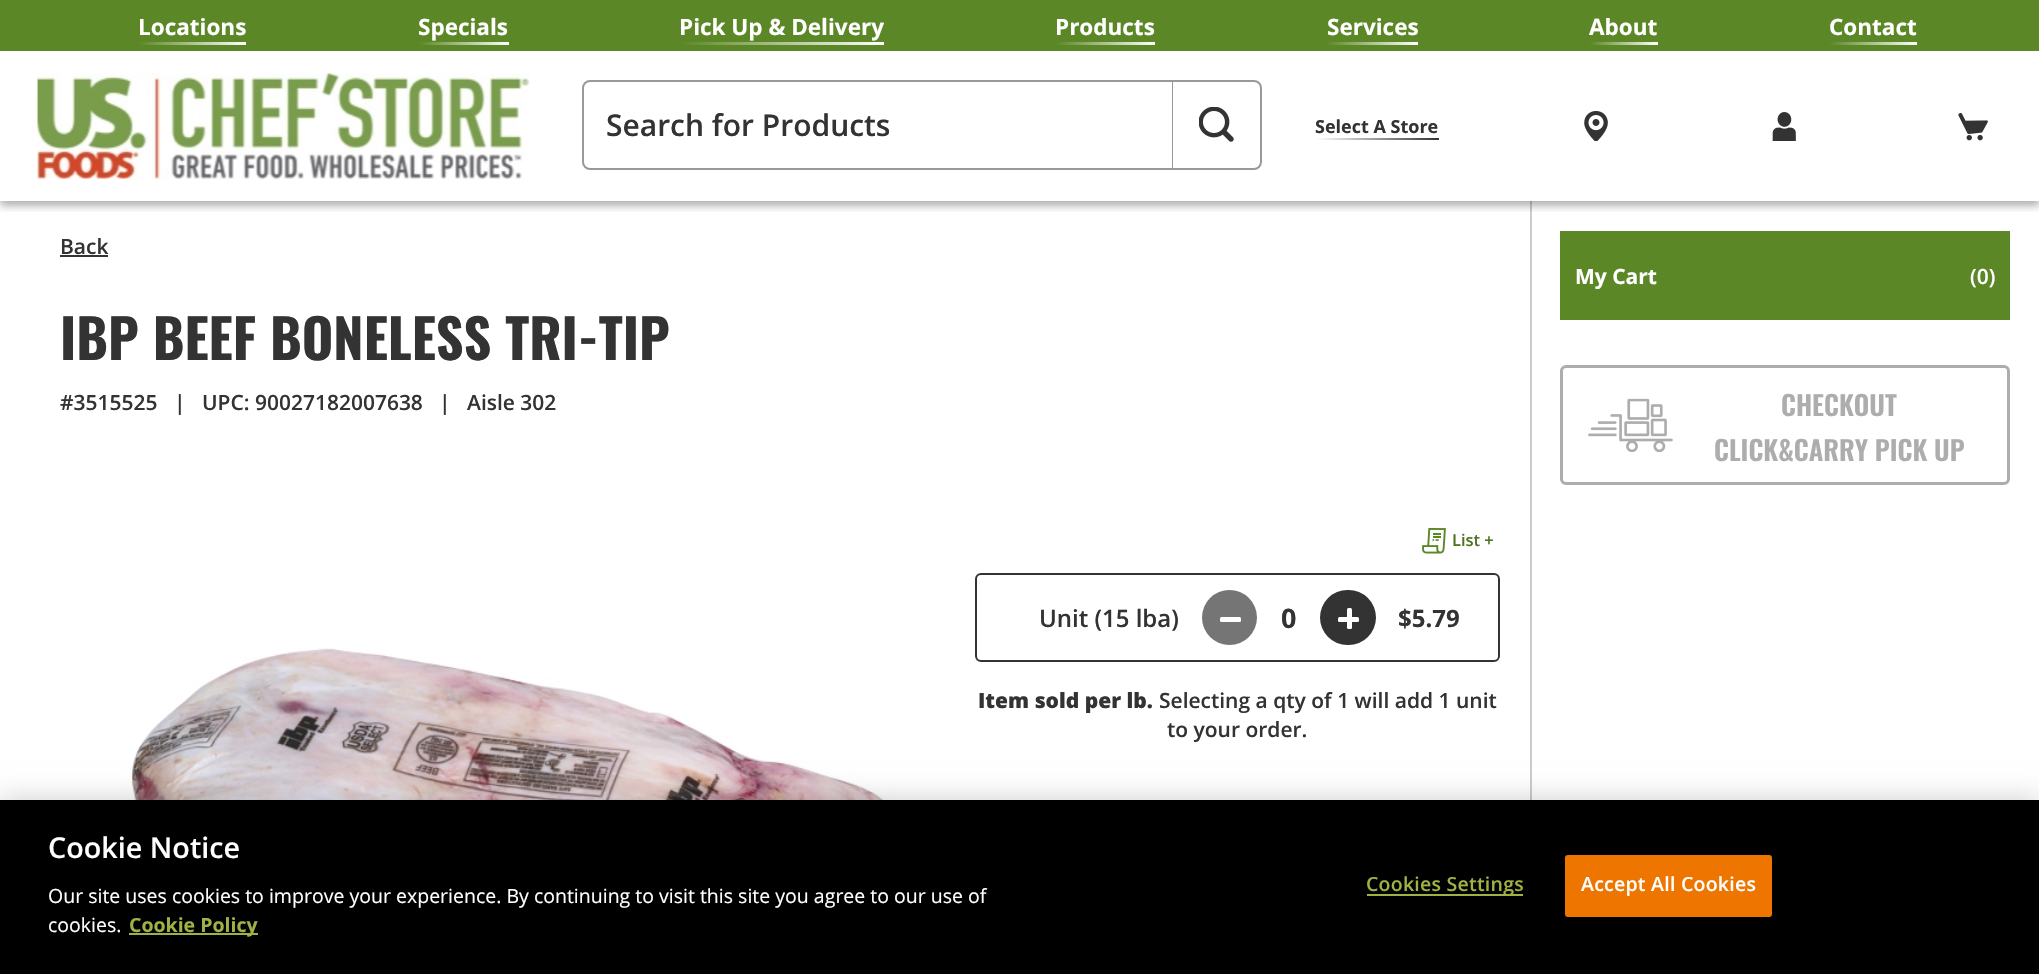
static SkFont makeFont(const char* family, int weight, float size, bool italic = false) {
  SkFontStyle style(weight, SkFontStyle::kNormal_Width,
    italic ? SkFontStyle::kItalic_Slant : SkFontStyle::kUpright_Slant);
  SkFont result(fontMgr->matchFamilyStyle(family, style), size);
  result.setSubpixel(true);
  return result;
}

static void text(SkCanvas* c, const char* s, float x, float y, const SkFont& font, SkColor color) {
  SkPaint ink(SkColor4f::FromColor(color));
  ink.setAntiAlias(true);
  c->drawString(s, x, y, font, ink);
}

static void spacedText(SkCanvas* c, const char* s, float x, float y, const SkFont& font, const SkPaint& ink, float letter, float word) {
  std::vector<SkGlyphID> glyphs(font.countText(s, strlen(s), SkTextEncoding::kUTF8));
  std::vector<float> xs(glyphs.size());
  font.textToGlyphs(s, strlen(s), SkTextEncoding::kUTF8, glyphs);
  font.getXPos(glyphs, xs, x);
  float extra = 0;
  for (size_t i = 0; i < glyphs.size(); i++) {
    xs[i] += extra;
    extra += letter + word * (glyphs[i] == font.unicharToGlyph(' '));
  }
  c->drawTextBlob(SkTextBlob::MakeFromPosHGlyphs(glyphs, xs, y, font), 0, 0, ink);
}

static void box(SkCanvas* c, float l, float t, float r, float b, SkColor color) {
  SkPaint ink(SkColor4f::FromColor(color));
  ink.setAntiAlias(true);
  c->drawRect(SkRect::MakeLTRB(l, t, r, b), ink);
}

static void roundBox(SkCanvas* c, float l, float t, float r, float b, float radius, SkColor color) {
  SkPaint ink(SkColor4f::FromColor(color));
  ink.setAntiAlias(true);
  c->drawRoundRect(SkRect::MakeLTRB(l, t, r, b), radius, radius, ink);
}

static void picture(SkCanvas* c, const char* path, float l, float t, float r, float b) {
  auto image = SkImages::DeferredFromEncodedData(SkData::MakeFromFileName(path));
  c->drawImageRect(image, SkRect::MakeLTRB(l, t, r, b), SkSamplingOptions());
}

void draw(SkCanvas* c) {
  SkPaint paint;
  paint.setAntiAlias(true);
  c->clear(0xffffffff);
  box(c, 1530, 201, 1532, 800, 0xffcccccc);
  c->save();
  c->clipRect(SkRect::MakeLTRB(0, 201, 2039, 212));
  paint.setColor(0x4d000000);
  paint.setMaskFilter(SkMaskFilter::MakeBlur(kNormal_SkBlurStyle, 4));
  c->drawRect(SkRect::MakeLTRB(0, 5, 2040, 206), paint);
  paint.setMaskFilter(nullptr);
  c->restore();
  box(c, 0, 0, 2039, 51, 0xff5c8727);
  {
    const SkColor colors[] = {0xff5c8727, 0xffffffff};
    const float stops[] = {0, 0.5f};
    const SkPoint ends[] = {{138, 44}, {354, 43}};
    paint.setShader(SkGradientShader::MakeLinear(ends, colors, stops, 2, SkTileMode::kClamp));
    paint.setAlpha(255);
  }
  c->drawRect(SkRect::MakeLTRB(138, 42, 246, 45), paint);
  SkFont face1 = makeFont("Open Sans", 700, 22.5f);
  text(c, "Locations", 138, 35, face1, 0xffffffff);
  {
    const SkColor colors[] = {0xff5c8727, 0xffffffff};
    const float stops[] = {0, 0.5f};
    const SkPoint ends[] = {{419, 44}, {599, 43}};
    paint.setShader(SkGradientShader::MakeLinear(ends, colors, stops, 2, SkTileMode::kClamp));
    paint.setAlpha(255);
  }
  c->drawRect(SkRect::MakeLTRB(419, 42, 509, 45), paint);
  text(c, "Specials", 418, 35, face1, 0xffffffff);
  {
    const SkColor colors[] = {0xff5c8727, 0xffffffff};
    const float stops[] = {0, 0.5f};
    const SkPoint ends[] = {{680, 44}, {1088, 43}};
    paint.setShader(SkGradientShader::MakeLinear(ends, colors, stops, 2, SkTileMode::kClamp));
    paint.setAlpha(255);
  }
  c->drawRect(SkRect::MakeLTRB(680, 42, 884, 45), paint);
  text(c, "Pick Up & Delivery", 679, 35, face1, 0xffffffff);
  {
    const SkColor colors[] = {0xff5c8727, 0xffffffff};
    const float stops[] = {0, 0.5f};
    const SkPoint ends[] = {{1056, 44}, {1254, 43}};
    paint.setShader(SkGradientShader::MakeLinear(ends, colors, stops, 2, SkTileMode::kClamp));
    paint.setAlpha(255);
  }
  c->drawRect(SkRect::MakeLTRB(1056, 42, 1155, 45), paint);
  text(c, "Products", 1055, 35, face1, 0xffffffff);
  {
    const SkColor colors[] = {0xff5c8727, 0xffffffff};
    const float stops[] = {0, 0.5f};
    const SkPoint ends[] = {{1326, 44}, {1509, 43}};
    paint.setShader(SkGradientShader::MakeLinear(ends, colors, stops, 2, SkTileMode::kClamp));
    paint.setAlpha(255);
  }
  c->drawRect(SkRect::MakeLTRB(1326, 42, 1418, 45), paint);
  text(c, "Services", 1327, 35, face1, 0xffffffff);
  {
    const SkColor colors[] = {0xff5c8727, 0xffffffff};
    const float stops[] = {0, 0.5f};
    const SkPoint ends[] = {{1590, 44}, {1725, 43}};
    paint.setShader(SkGradientShader::MakeLinear(ends, colors, stops, 2, SkTileMode::kClamp));
    paint.setAlpha(255);
  }
  c->drawRect(SkRect::MakeLTRB(1590, 42, 1658, 45), paint);
  text(c, "About", 1589, 35, face1, 0xffffffff);
  {
    const SkColor colors[] = {0xff5c8727, 0xffffffff};
    const float stops[] = {0, 0.5f};
    const SkPoint ends[] = {{1829, 44}, {2006, 43}};
    paint.setShader(SkGradientShader::MakeLinear(ends, colors, stops, 2, SkTileMode::kClamp));
    paint.setAlpha(255);
  }
  c->drawRect(SkRect::MakeLTRB(1829, 42, 1917, 45), paint);
  text(c, "Contact", 1829, 35, face1, 0xffffffff);
  picture(c, "img_01.png", 37, 73, 530, 179);
  paint.setStyle(SkPaint::kStroke_Style);
  paint.setStrokeWidth(2);
  paint.setShader(nullptr);
  paint.setColor(0xff999999);
  c->drawRoundRect(SkRect::MakeLTRB(583, 81, 1261, 169), 7, 7, paint);
  SkFont face2 = makeFont("Open Sans", 600, 30);
  text(c, "Search for Products", 606, 136, face2, 0xff333333);
  paint.setStyle(SkPaint::kFill_Style);
  c->drawPath(SkPathBuilder().moveTo(1173, 81).lineTo(1172, 80).lineTo(1172, 169).lineTo(1173, 168).close().detach(), paint);
  picture(c, "img_02.png", 1199, 107, 1234, 142);
  SkFont face3 = makeFont("Open Sans", 700, 18);
  text(c, "Select A Store", 1315, 133, face3, 0xff333333);
  {
    const SkColor colors[] = {0xffffffff, 0xff333333};
    const float stops[] = {0, 0.5f};
    const SkPoint ends[] = {{1316, 139}, {1562, 139}};
    paint.setShader(SkGradientShader::MakeLinear(ends, colors, stops, 2, SkTileMode::kClamp));
    paint.setAlpha(255);
  }
  c->drawRect(SkRect::MakeLTRB(1316, 138, 1439, 140), paint);
  picture(c, "img_03.png", 1584, 111, 1608, 141);
  picture(c, "img_04.png", 1772, 112, 1796, 141);
  picture(c, "img_05.png", 1958, 113, 1988, 141);
  SkFont face4 = makeFont("Open Sans", 600, 21);
  text(c, "Back", 60, 254, face4, 0xff333333);
  box(c, 60, 255, 108, 257, 0xff333333);
  SkFont face5 = makeFont("Oswald", 700, 54);
  text(c, "IBP BEEF BONELESS TRI-TIP", 60, 360, face5, 0xff333333);
  text(c, "#3515525", 60, 410, face4, 0xff333333);
  text(c, "|", 174, 410, face4, 0xff333333);
  text(c, "UPC: 90027182007638", 202, 410, face4, 0xff333333);
  text(c, "|", 439, 410, face4, 0xff333333);
  text(c, "Aisle 302", 467, 410, face4, 0xff333333);
  picture(c, "img_06.png", 46, 648, 916, 800);
  picture(c, "img_07.png", 1422, 528, 1446, 554);
  SkFont face6 = makeFont("Open Sans", 600, 16.5f);
  text(c, "List +", 1452, 546, face6, 0xff4f7321);
  paint.setStyle(SkPaint::kStroke_Style);
  paint.setShader(nullptr);
  paint.setColor(0xff333333);
  c->drawRoundRect(SkRect::MakeLTRB(976, 574, 1499, 661), 5, 5, paint);
  SkFont face7 = makeFont("Open Sans", 600, 24);
  text(c, "Unit (15 lba)", 1039, 627, face7, 0xff333333);
  paint.setStyle(SkPaint::kFill_Style);
  paint.setColor(0xff757575);
  c->drawCircle(1229.5f, 617.5f, 27.5f, paint);
  roundBox(c, 1220, 617, 1241, 622, 1.5f, 0xffffffff);
  SkFont face8 = makeFont("Open Sans", 700, 27);
  text(c, "0", 1281, 628, face8, 0xff333333);
  roundBox(c, 1320, 590, 1376, 645, 27.5f, 0xff333333);
  roundBox(c, 1338, 617, 1359, 622, 1.5f, 0xffffffff);
  roundBox(c, 1347, 608, 1352, 629, 1.5f, 0xffffffff);
  SkFont face9 = makeFont("Open Sans", 700, 24);
  text(c, "$5.79", 1398, 627, face9, 0xff333333);
  SkFont face10 = makeFont("Open Sans", 800, 21);
  text(c, "Item sold per lb.", 978, 708, face10, 0xff333333);
  text(c, "Selecting a qty of 1 will add 1 unit", 1159, 708, face4, 0xff333333);
  text(c, "to your order.", 1167, 737, face4, 0xff333333);
  box(c, 1560, 231, 2010, 320, 0xff5c8727);
  SkFont face11 = makeFont("Open Sans", 700, 21);
  text(c, "My Cart", 1575, 284, face11, 0xffffffff);
  text(c, "(0)", 1970, 284, face4, 0xffffffff);
  paint.setStyle(SkPaint::kStroke_Style);
  paint.setStrokeWidth(3);
  paint.setColor(0xffadadad);
  c->drawRoundRect(SkRect::MakeLTRB(1561.5f, 366.5f, 2008.5f, 483.5f), 4.5f, 4.5f, paint);
  picture(c, "img_08.png", 1588, 398, 1673, 452);
  SkFont face12 = makeFont("Oswald", 600, 27);
  text(c, "CHECKOUT", 1781, 416, face12, 0xffadadad);
  text(c, "CLICK&CARRY PICK UP", 1714, 461, face12, 0xffadadad);
  paint.setStyle(SkPaint::kFill_Style);
  paint.setColor(0x33000000);
  paint.setMaskFilter(SkMaskFilter::MakeBlur(kNormal_SkBlurStyle, 13.5f));
  c->drawRect(SkRect::MakeLTRB(0, 800, 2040, 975), paint);
  paint.setMaskFilter(nullptr);
  box(c, 0, 800, 2039, 974, 0xff000000);
  SkFont face13 = makeFont("Open Sans", 600, 28.75f);
  text(c, "Cookie Notice", 48, 858, face13, 0xffffffff);
  SkFont face14 = makeFont("Open Sans", 400, 19.5f);
  text(c, "Our site uses cookies to improve your experience. By continuing to visit this site you agree to our use of", 48, 903, face14, 0xffffffff);
  text(c, "cookies.", 48, 932, face14, 0xffffffff);
  box(c, 129, 933, 258, 935, 0xffa1b143);
  SkFont face15 = makeFont("Open Sans", 700, 19.5f);
  text(c, "Cookie Policy", 129, 932, face15, 0xffa1b143);
  box(c, 1367, 894, 1523, 896, 0xffa1b143);
  SkFont face16 = makeFont("Open Sans", 600, 19.5f);
  paint.setColor(0xffa1b143);
  spacedText(c, "Cookies Settings", 1366, 891, face16, paint, 0.25f, 0);
  paint.setColor(0xffee7600);
  c->drawRoundRect(SkRect::MakeLTRB(1566, 856, 1771, 916), 2, 2, paint);
  paint.setStyle(SkPaint::kStroke_Style);
  paint.setStrokeWidth(2);
  c->drawRoundRect(SkRect::MakeLTRB(1566, 856, 1771, 916), 2, 2, paint);
  paint.setStyle(SkPaint::kFill_Style);
  paint.setColor(0xffffffff);
  spacedText(c, "Accept All Cookies", 1581, 891, face16, paint, 0.25f, 0);
}
